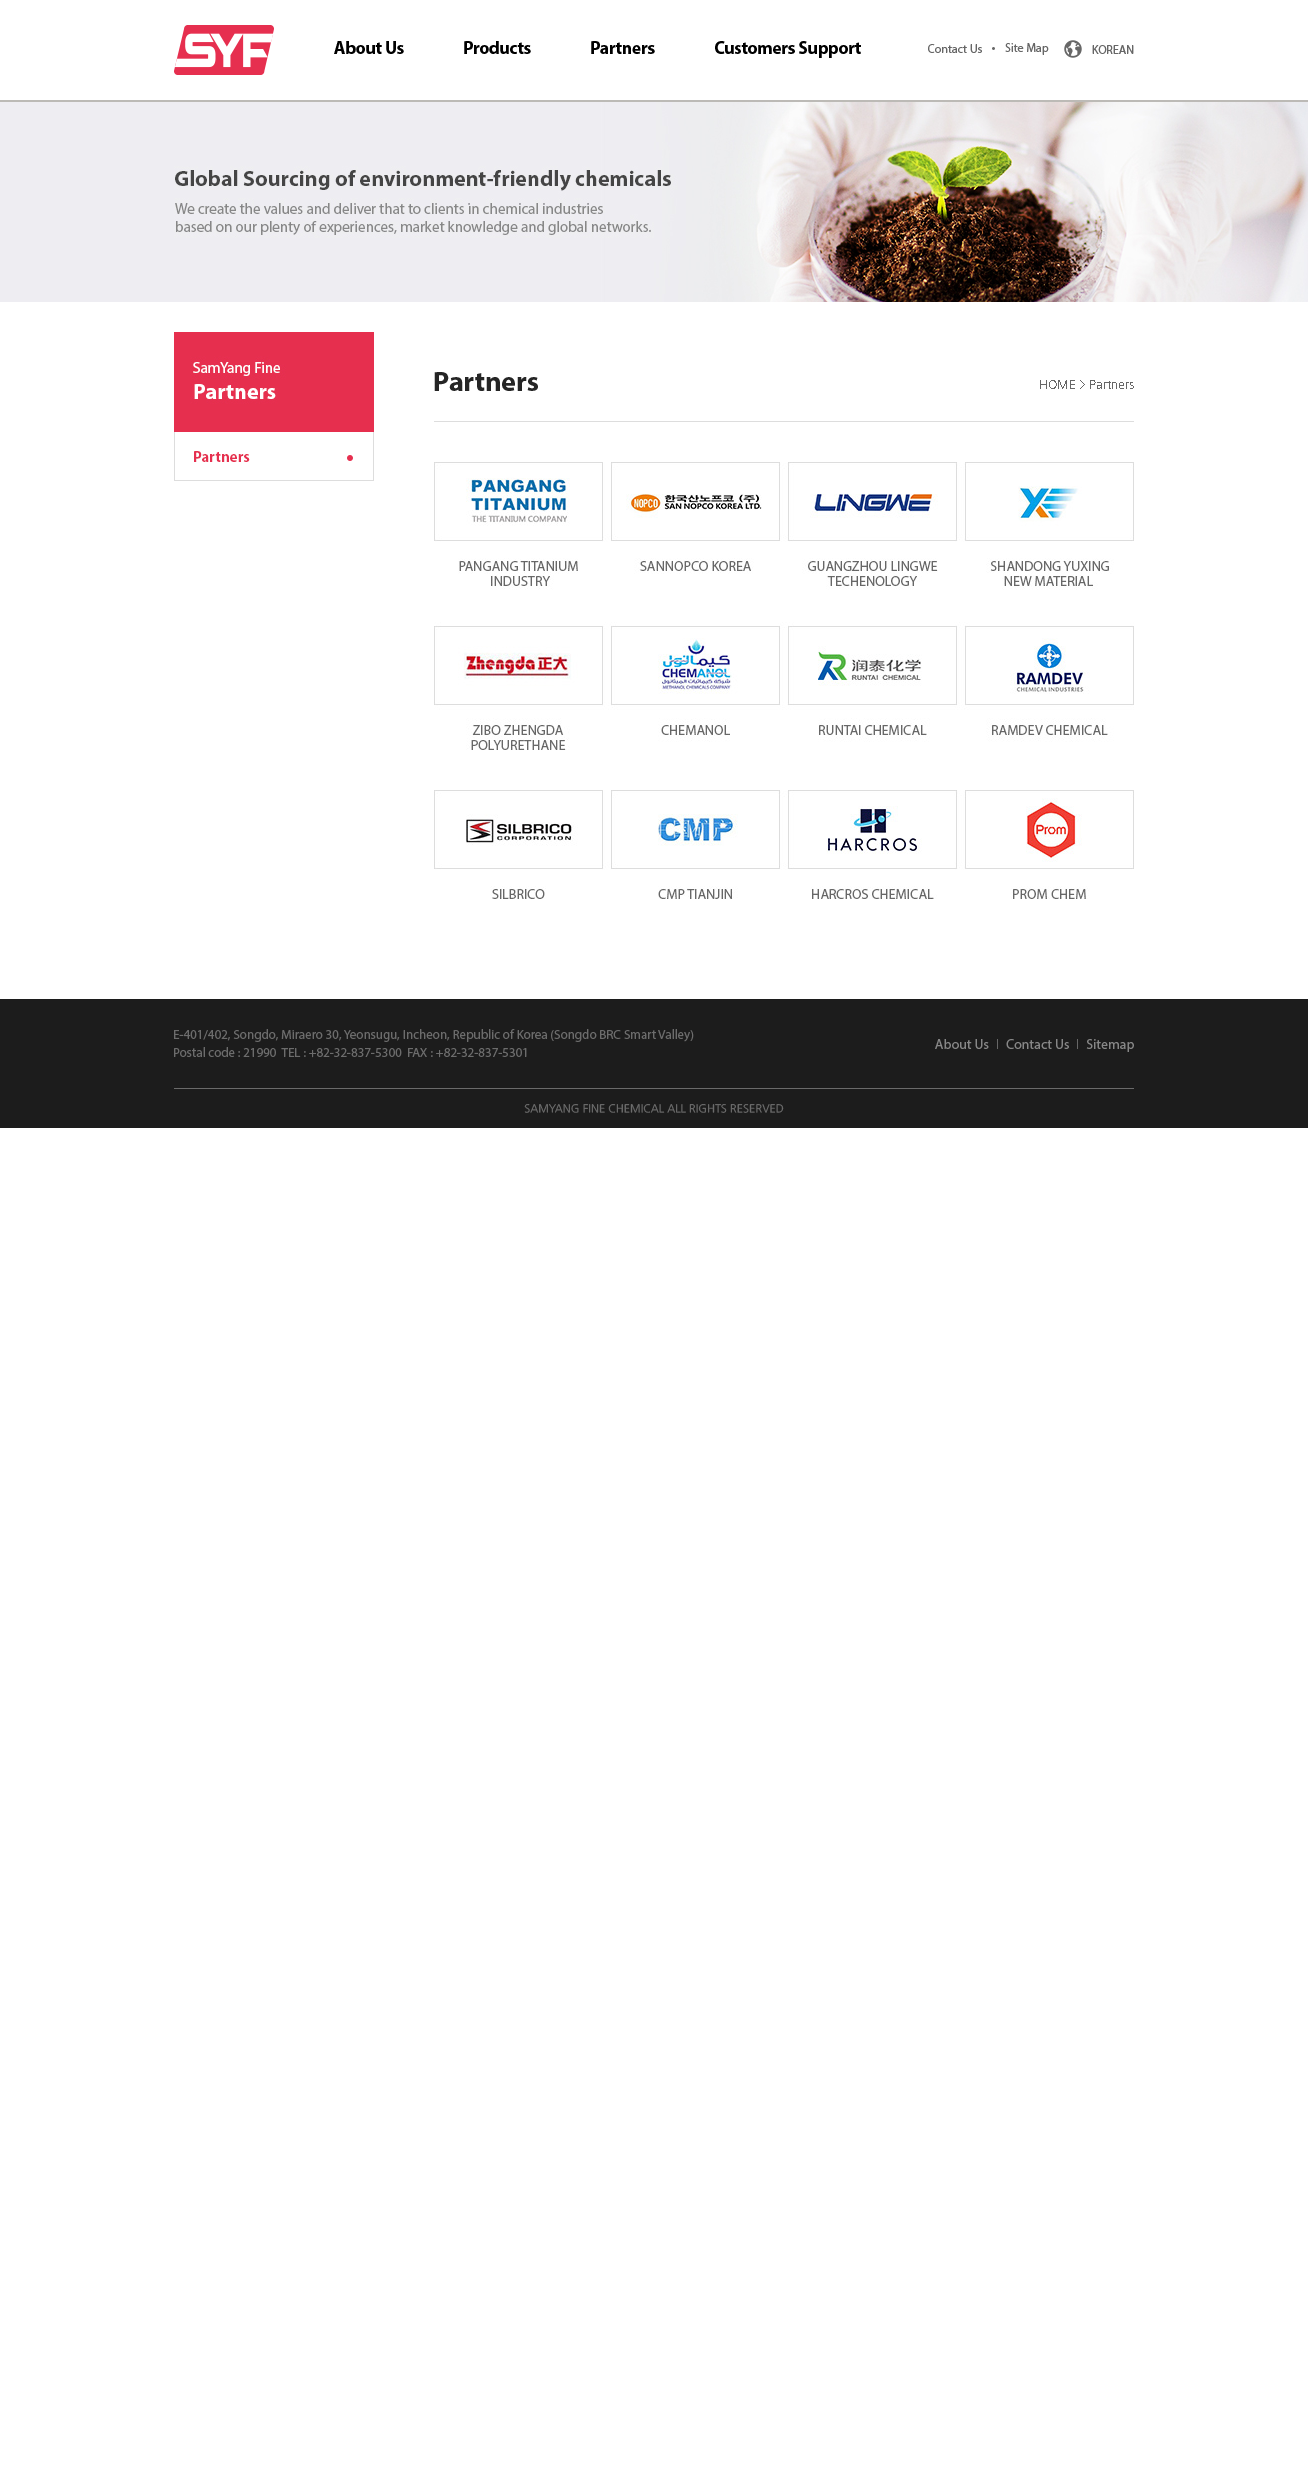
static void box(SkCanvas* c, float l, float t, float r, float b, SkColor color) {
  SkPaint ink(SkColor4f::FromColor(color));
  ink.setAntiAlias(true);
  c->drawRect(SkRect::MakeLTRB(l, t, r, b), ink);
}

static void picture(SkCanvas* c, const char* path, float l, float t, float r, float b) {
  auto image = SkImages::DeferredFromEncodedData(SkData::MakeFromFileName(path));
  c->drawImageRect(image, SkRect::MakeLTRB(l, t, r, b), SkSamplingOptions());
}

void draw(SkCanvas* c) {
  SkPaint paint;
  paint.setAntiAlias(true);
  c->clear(0xffffffff);
  box(c, 0, 100, 1308, 102, 0xffbcbab6);
  picture(c, "img_01.png", 174, 25, 274, 75);
  picture(c, "img_02.png", 334, 41, 404, 54);
  picture(c, "img_03.png", 464, 41, 531, 54);
  picture(c, "img_04.png", 591, 41, 655, 54);
  picture(c, "img_05.png", 715, 41, 861, 58);
  picture(c, "img_06.png", 928, 44, 982, 53);
  picture(c, "img_07.png", 992, 43, 1049, 55);
  picture(c, "img_08.png", 1064, 40, 1134, 58);
  picture(c, "img_09.png", 0, 102, 1308, 302);
  picture(c, "img_10.png", 174, 332, 374, 432);
  box(c, 373, 432, 374, 481, 0xffdddddd);
  box(c, 174, 480, 374, 481, 0xffdddddd);
  box(c, 174, 432, 175, 481, 0xffdddddd);
  picture(c, "img_11.png", 175, 432, 373, 480);
  box(c, 434, 421, 1134, 422, 0xffdddddd);
  picture(c, "img_12.png", 434, 372, 538, 391);
  picture(c, "img_13.png", 1040, 380, 1134, 389);
  picture(c, "img_14.png", 434, 462, 1134, 899);
  box(c, 0, 999, 1308, 1128, 0xff1c1c1c);
  box(c, 174, 1088, 1134, 1089, 0xff6a6a6a);
  picture(c, "img_15.png", 174, 1029, 694, 1058);
  box(c, 997, 1039, 998, 1049, 0xff676767);
  picture(c, "img_16.png", 935, 1039, 989, 1049);
  box(c, 1077, 1039, 1078, 1049, 0xff676767);
  picture(c, "img_17.png", 1006, 1039, 1069, 1049);
  picture(c, "img_18.png", 1086, 1039, 1134, 1052);
  picture(c, "img_19.png", 524, 1104, 784, 1113);
}
